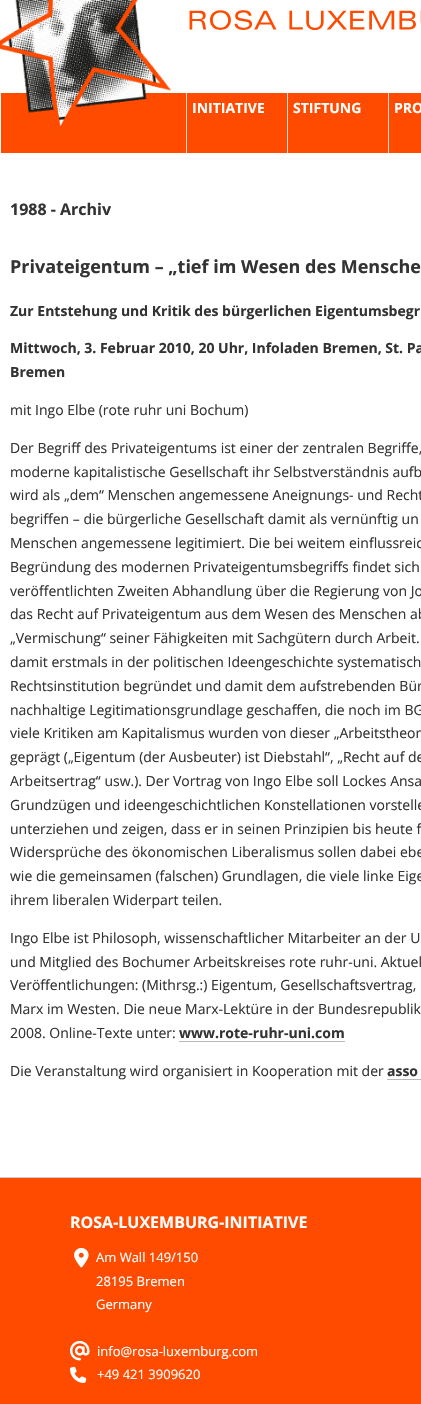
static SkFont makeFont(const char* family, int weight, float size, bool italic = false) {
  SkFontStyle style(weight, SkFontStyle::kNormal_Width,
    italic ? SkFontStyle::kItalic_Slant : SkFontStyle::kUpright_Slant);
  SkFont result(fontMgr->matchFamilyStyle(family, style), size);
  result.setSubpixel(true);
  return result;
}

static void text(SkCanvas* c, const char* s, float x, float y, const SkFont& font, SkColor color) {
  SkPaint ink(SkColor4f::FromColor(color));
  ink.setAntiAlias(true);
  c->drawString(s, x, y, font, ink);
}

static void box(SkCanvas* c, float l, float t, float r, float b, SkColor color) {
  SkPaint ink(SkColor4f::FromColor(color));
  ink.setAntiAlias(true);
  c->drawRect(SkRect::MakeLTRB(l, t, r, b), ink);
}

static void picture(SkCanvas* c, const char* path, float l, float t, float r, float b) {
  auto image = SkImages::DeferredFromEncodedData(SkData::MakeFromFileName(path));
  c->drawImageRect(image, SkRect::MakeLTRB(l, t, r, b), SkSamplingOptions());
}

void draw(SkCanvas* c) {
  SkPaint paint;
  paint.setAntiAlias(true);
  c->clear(0xffffffff);
  box(c, 1, 93, 421, 153, 0xffff4b00);
  picture(c, "img_01.png", 0, 0, 171, 139);
  picture(c, "img_02.png", 189, 10, 421, 30);
  box(c, 287, 93, 288, 153, 0xffdddddd);
  box(c, 186, 93, 187, 153, 0xffdddddd);
  SkFont face1 = makeFont("Open Sans", 700, 14);
  text(c, "INITIATIVE", 192, 113, face1, 0xffffffff);
  box(c, 388, 93, 389, 153, 0xffdddddd);
  text(c, "STIFTUNG", 293, 113, face1, 0xffffffff);
  text(c, "PRO", 394, 113, face1, 0xffffffff);
  SkFont face2 = makeFont("Open Sans", 700, 16);
  text(c, "1988 - Archiv", 10, 215, face2, 0xff333333);
  SkFont face3 = makeFont("Open Sans", 700, 18);
  text(c, "Privateigentum – „tief im Wesen des Mensche", 10, 273, face3, 0xff333333);
  text(c, "Zur Entstehung und Kritik des bürgerlichen Eigentumsbegr", 10, 316, face1, 0xff333333);
  text(c, "Mittwoch, 3. Februar 2010, 20 Uhr, Infoladen Bremen, St. Pa", 10, 353, face1, 0xff333333);
  text(c, "Bremen", 10, 377, face1, 0xff333333);
  SkFont face4 = makeFont("Open Sans", 400, 14);
  text(c, "mit Ingo Elbe (rote ruhr uni Bochum)", 10, 415, face4, 0xff333333);
  text(c, "Der Begriff des Privateigentums ist einer der zentralen Begriffe,", 10, 453, face4, 0xff333333);
  text(c, "moderne kapitalistische Gesellschaft ihr Selbstverständnis aufb", 10, 477, face4, 0xff333333);
  text(c, "wird als „dem“ Menschen angemessene Aneignungs- und Recht", 10, 500, face4, 0xff333333);
  text(c, "begriffen – die bürgerliche Gesellschaft damit als vernünftig un", 10, 524, face4, 0xff333333);
  text(c, "Menschen angemessene legitimiert. Die bei weitem einflussreic", 10, 548, face4, 0xff333333);
  text(c, "Begründung des modernen Privateigentumsbegriffs findet sich", 10, 572, face4, 0xff333333);
  text(c, "veröffentlichten Zweiten Abhandlung über die Regierung von Jo", 10, 596, face4, 0xff333333);
  text(c, "das Recht auf Privateigentum aus dem Wesen des Menschen ab", 10, 619, face4, 0xff333333);
  text(c, "„Vermischung“ seiner Fähigkeiten mit Sachgütern durch Arbeit.", 10, 643, face4, 0xff333333);
  text(c, "damit erstmals in der politischen Ideengeschichte systematisch", 10, 667, face4, 0xff333333);
  text(c, "Rechtsinstitution begründet und damit dem aufstrebenden Bür", 10, 691, face4, 0xff333333);
  text(c, "nachhaltige Legitimationsgrundlage geschaffen, die noch im BG", 10, 715, face4, 0xff333333);
  text(c, "viele Kritiken am Kapitalismus wurden von dieser „Arbeitstheor", 10, 738, face4, 0xff333333);
  text(c, "geprägt („Eigentum (der Ausbeuter) ist Diebstahl“, „Recht auf de", 10, 762, face4, 0xff333333);
  text(c, "Arbeitsertrag“ usw.). Der Vortrag von Ingo Elbe soll Lockes Ansa", 10, 786, face4, 0xff333333);
  text(c, "Grundzügen und ideengeschichtlichen Konstellationen vorstelle", 10, 810, face4, 0xff333333);
  text(c, "unterziehen und zeigen, dass er in seinen Prinzipien bis heute f", 10, 834, face4, 0xff333333);
  text(c, "Widersprüche des ökonomischen Liberalismus sollen dabei ebe", 10, 857, face4, 0xff333333);
  text(c, "wie die gemeinsamen (falschen) Grundlagen, die viele linke Eige", 10, 881, face4, 0xff333333);
  text(c, "ihrem liberalen Widerpart teilen.", 10, 905, face4, 0xff333333);
  text(c, "Ingo Elbe ist Philosoph, wissenschaftlicher Mitarbeiter an der U", 10, 943, face4, 0xff333333);
  text(c, "und Mitglied des Bochumer Arbeitskreises rote ruhr-uni. Aktuel", 10, 967, face4, 0xff333333);
  text(c, "Veröffentlichungen: (Mithrsg.:) Eigentum, Gesellschaftsvertrag,", 10, 990, face4, 0xff333333);
  text(c, "Marx im Westen. Die neue Marx-Lektüre in der Bundesrepublik", 10, 1014, face4, 0xff333333);
  text(c, "2008. Online-Texte unter:", 10, 1038, face4, 0xff333333);
  text(c, "www.rote-ruhr-uni.com", 179, 1038, face1, 0xff333333);
  box(c, 179, 1041, 345, 1042, 0xffb8b8b8);
  text(c, "Die Veranstaltung wird organisiert in Kooperation mit der", 10, 1076, face4, 0xff333333);
  text(c, "asso", 387, 1076, face1, 0xff333333);
  box(c, 387, 1079, 421, 1080, 0xffb8b8b8);
  box(c, 0, 1178, 421, 1404, 0xffff4b00);
  box(c, 0, 1177, 421, 1178, 0xffcccccc);
  text(c, "ROSA-LUXEMBURG-INITIATIVE", 70, 1228, face2, 0xffffffff);
  picture(c, "img_03.png", 74, 1247, 89, 1268);
  SkFont face5 = makeFont("Open Sans", 400, 13);
  text(c, "Am Wall 149/150", 96, 1262, face5, 0xffffffff);
  text(c, "28195 Bremen", 96, 1286, face5, 0xffffffff);
  text(c, "Germany", 96, 1309, face5, 0xffffffff);
  picture(c, "img_04.png", 70, 1340, 90, 1361);
  text(c, "info@rosa-luxemburg.com", 97, 1356, face5, 0xffffffff);
  picture(c, "img_05.png", 70, 1366, 87, 1383);
  text(c, "+49 421 3909620", 97, 1379, face5, 0xffffffff);
}
